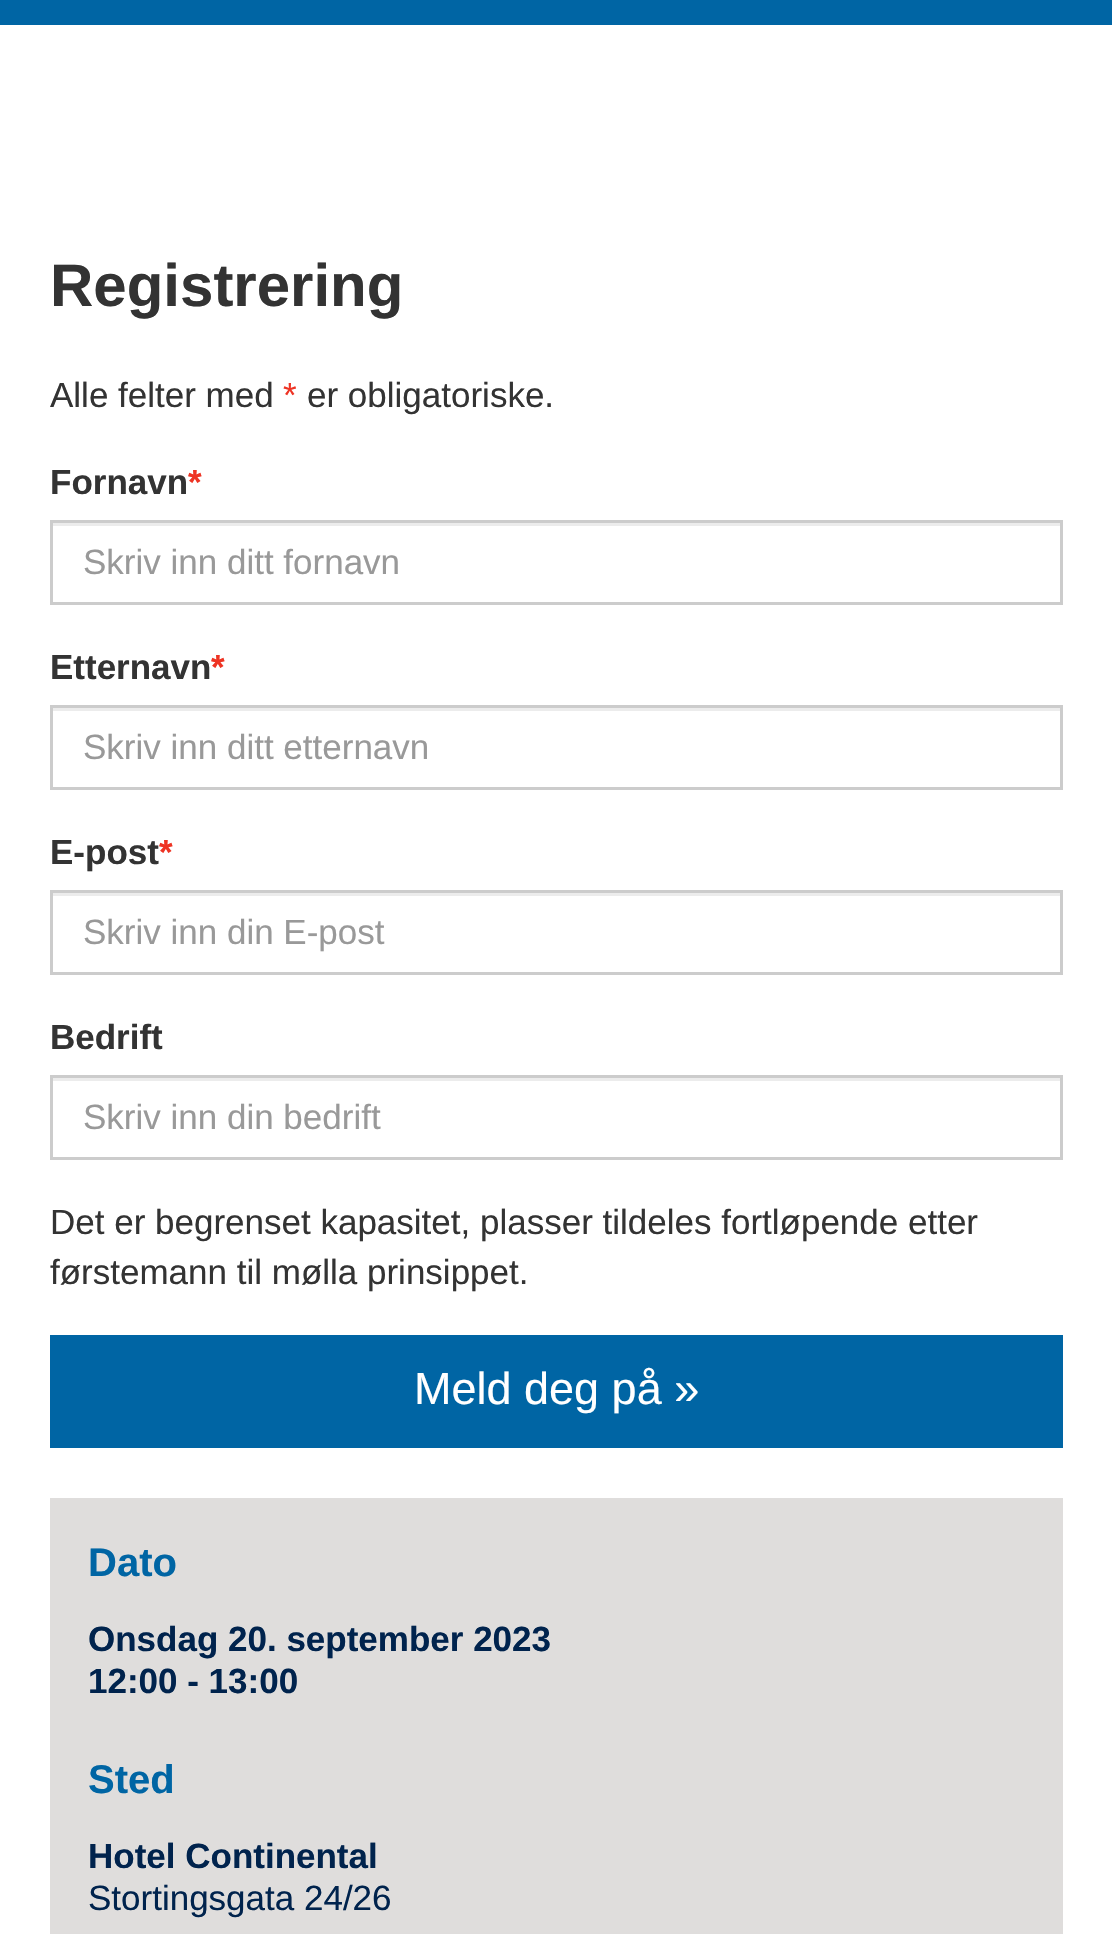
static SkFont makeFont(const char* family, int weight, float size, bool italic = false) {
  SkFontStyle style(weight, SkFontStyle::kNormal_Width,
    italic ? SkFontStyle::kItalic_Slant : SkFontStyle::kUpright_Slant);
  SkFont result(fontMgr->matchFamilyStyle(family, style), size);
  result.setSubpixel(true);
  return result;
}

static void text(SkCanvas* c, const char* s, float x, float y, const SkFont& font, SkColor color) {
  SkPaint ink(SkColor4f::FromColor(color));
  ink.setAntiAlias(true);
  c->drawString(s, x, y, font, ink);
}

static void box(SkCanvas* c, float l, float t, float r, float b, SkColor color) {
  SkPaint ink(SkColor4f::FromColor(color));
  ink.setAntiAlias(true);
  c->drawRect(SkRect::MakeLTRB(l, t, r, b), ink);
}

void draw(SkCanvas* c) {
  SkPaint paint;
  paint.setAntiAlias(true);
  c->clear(0xffffffff);
  box(c, 0, 0, 1112, 25, 0xff0065a4);
  SkFont face1 = makeFont("Liberation Sans", 700, 60);
  text(c, "Registrering", 50, 306, face1, 0xff333333);
  SkFont face2 = makeFont("Liberation Sans", 400, 35);
  text(c, "Alle felter med", 50, 407, face2, 0xff333333);
  text(c, "*", 283, 407, face2, 0xffee3424);
  text(c, "er obligatoriske.", 307, 407, face2, 0xff333333);
  SkFont face3 = makeFont("Liberation Sans", 700, 35);
  text(c, "Fornavn", 50, 494, face3, 0xff333333);
  text(c, "*", 188, 494, face3, 0xffee3424);
  box(c, 53, 523, 1060, 526, 0xffececec);
  paint.setStyle(SkPaint::kStroke_Style);
  paint.setStrokeWidth(3);
  paint.setColor(0xffcccccc);
  c->drawRect(SkRect::MakeLTRB(51.5f, 521.5f, 1061.5f, 603.5f), paint);
  text(c, "Skriv inn ditt fornavn", 83, 574, face2, 0xff999999);
  text(c, "Etternavn", 50, 679, face3, 0xff333333);
  text(c, "*", 211, 679, face3, 0xffee3424);
  box(c, 53, 708, 1060, 711, 0xffececec);
  c->drawRect(SkRect::MakeLTRB(51.5f, 706.5f, 1061.5f, 788.5f), paint);
  text(c, "Skriv inn ditt etternavn", 83, 759, face2, 0xff999999);
  text(c, "E-post", 50, 864, face3, 0xff333333);
  text(c, "*", 159, 864, face3, 0xffee3424);
  box(c, 53, 893, 1060, 896, 0xffececec);
  c->drawRect(SkRect::MakeLTRB(51.5f, 891.5f, 1061.5f, 973.5f), paint);
  text(c, "Skriv inn din E-post", 83, 944, face2, 0xff999999);
  text(c, "Bedrift", 50, 1049, face3, 0xff333333);
  box(c, 53, 1078, 1060, 1081, 0xffececec);
  c->drawRect(SkRect::MakeLTRB(51.5f, 1076.5f, 1061.5f, 1158.5f), paint);
  text(c, "Skriv inn din bedrift", 83, 1129, face2, 0xff999999);
  text(c, "Det er begrenset kapasitet, plasser tildeles fortløpende etter", 50, 1234, face2, 0xff333333);
  text(c, "førstemann til mølla prinsippet.", 50, 1284, face2, 0xff333333);
  box(c, 50, 1335, 1063, 1448, 0xff0065a4);
  SkFont face4 = makeFont("Liberation Sans", 400, 45);
  text(c, "Meld deg på »", 414, 1404, face4, 0xffffffff);
  box(c, 50, 1498, 1063, 1934, 0xffdfdddc);
  SkFont face5 = makeFont("Liberation Sans", 700, 40);
  text(c, "Dato", 88, 1576, face5, 0xff0065a4);
  text(c, "Onsdag 20. september 2023", 88, 1651, face3, 0xff00234d);
  text(c, "12:00 - 13:00", 88, 1693, face3, 0xff00234d);
  text(c, "Sted", 88, 1793, face5, 0xff0065a4);
  text(c, "Hotel Continental", 88, 1868, face3, 0xff00234d);
  text(c, "Stortingsgata 24/26", 88, 1910, face2, 0xff00234d);
}
